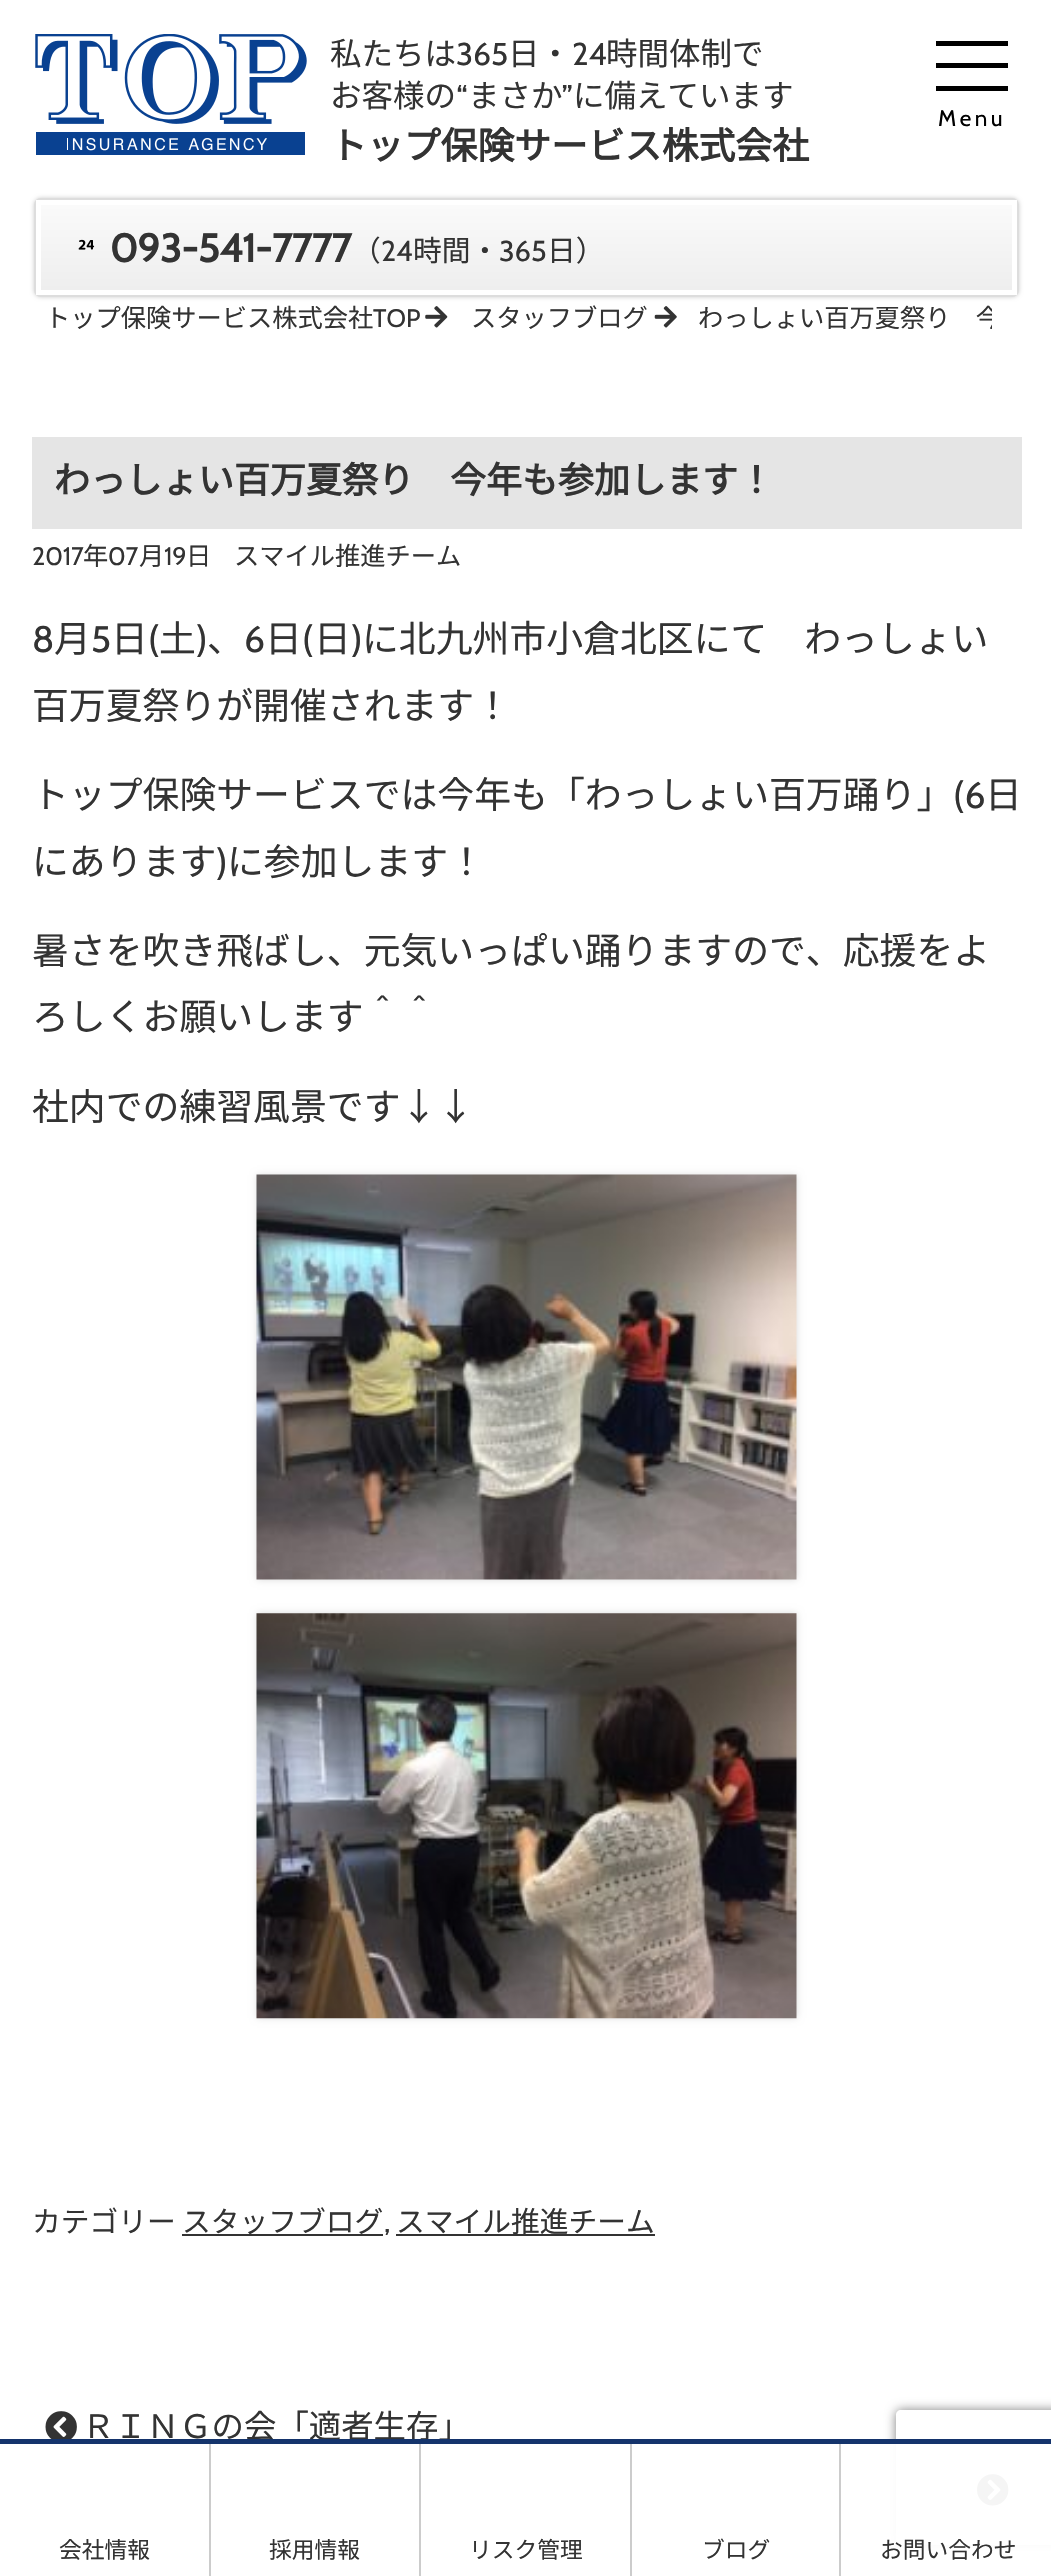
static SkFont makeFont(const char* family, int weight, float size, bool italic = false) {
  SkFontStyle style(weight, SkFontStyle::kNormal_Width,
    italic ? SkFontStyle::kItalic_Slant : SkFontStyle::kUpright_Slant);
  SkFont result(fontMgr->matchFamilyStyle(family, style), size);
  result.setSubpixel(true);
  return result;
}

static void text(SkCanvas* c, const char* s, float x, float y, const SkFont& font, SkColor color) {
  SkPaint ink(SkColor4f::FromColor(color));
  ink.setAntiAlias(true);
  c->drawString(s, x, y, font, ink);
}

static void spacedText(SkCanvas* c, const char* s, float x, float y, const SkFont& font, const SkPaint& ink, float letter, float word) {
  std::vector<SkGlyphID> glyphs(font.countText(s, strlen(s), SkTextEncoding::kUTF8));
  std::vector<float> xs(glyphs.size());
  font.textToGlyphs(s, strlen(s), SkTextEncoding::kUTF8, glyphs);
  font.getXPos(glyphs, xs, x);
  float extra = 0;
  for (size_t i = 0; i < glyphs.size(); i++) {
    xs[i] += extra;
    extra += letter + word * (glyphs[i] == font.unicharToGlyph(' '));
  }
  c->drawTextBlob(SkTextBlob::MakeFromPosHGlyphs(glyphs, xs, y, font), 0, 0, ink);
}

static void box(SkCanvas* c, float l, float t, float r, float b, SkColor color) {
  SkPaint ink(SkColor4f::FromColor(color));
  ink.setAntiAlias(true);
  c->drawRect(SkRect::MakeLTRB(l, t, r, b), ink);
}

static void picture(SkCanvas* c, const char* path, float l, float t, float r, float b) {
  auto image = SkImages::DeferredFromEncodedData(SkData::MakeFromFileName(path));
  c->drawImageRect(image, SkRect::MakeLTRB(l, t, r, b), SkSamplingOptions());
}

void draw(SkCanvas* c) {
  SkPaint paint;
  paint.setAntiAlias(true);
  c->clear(0xffffffff);
  picture(c, "img_01.png", 35, 34, 307, 155);
  SkFont face1 = makeFont("Noto Sans JP", 100, 31.5f);
  text(c, "私たちは", 330, 65, face1, 0xff333333);
  SkFont face2 = makeFont("Cabin", 400, 31.5f);
  text(c, "365", 456, 65, face2, 0xff333333);
  text(c, "日・", 508, 65, face1, 0xff333333);
  text(c, "24", 572, 65, face2, 0xff333333);
  text(c, "時間体制で", 606, 65, face1, 0xff333333);
  text(c, "お客様の", 330, 107, face1, 0xff333333);
  text(c, "“", 456, 107, face2, 0xff333333);
  text(c, "まさか", 468, 107, face1, 0xff333333);
  text(c, "”", 562, 107, face2, 0xff333333);
  text(c, "に備えています", 573, 107, face1, 0xff333333);
  SkFont face3 = makeFont("Noto Sans JP", 700, 36.85f);
  text(c, "トップ保険サービス株式会社", 330, 159, face3, 0xff333333);
  box(c, 936, 41, 1008, 46, 0xff000000);
  box(c, 936, 63, 1008, 68, 0xff000000);
  box(c, 936, 86, 1008, 91, 0xff000000);
  SkFont face4 = makeFont("Cabin", 400, 22.5f);
  paint.setColor(0xff000000);
  spacedText(c, "Menu", 938, 126, face4, paint, 3.5f, 0);
  paint.setColor(0x33000000);
  paint.setMaskFilter(SkMaskFilter::MakeBlur(kNormal_SkBlurStyle, 2));
  c->drawRoundRect(SkRect::MakeLTRB(34, 198, 1019, 297), 7, 7, paint);
  paint.setMaskFilter(nullptr);
  paint.setStyle(SkPaint::kStroke_Style);
  paint.setStrokeWidth(2);
  paint.setColor(0xffdddddd);
  c->drawRoundRect(SkRect::MakeLTRB(35, 199, 1018, 296), 6, 6, paint);
  paint.setStyle(SkPaint::kFill_Style);
  {
    const SkColor colors[] = {0xfffafafa, 0xffeeeeee};
    const float stops[] = {0, 1};
    const SkPoint ends[] = {{527, 205}, {527, 290}};
    paint.setShader(SkGradientShader::MakeLinear(ends, colors, stops, 2, SkTileMode::kClamp));
    paint.setAlpha(255);
  }
  c->drawRect(SkRect::MakeLTRB(41, 205, 1012, 290), paint);
  paint.setStyle(SkPaint::kStroke_Style);
  paint.setStrokeWidth(5);
  paint.setShader(nullptr);
  paint.setColor(0xffffffff);
  c->drawRect(SkRect::MakeLTRB(38.5f, 202.5f, 1014.5f, 292.5f), paint);
  picture(c, "img_02.png", 78, 239, 95, 250);
  SkFont face5 = makeFont("Cabin", 700, 39.5f);
  text(c, "093-541-7777", 110, 262, face5, 0xff333333);
  SkFont face6 = makeFont("Noto Sans JP", 100, 28.75f);
  text(c, "（", 352, 261, face6, 0xff333333);
  SkFont face7 = makeFont("Cabin", 400, 28.75f);
  text(c, "24", 381, 261, face7, 0xff333333);
  text(c, "時間・", 413, 261, face6, 0xff333333);
  text(c, "365", 499, 261, face7, 0xff333333);
  text(c, "日）", 547, 261, face6, 0xff333333);
  SkFont face8 = makeFont("Noto Sans JP", 100, 25.25f);
  text(c, "トップ保険サービス株式会社", 45, 327, face8, 0xff333333);
  SkFont face9 = makeFont("Cabin", 400, 25.25f);
  text(c, "TOP", 373, 327, face9, 0xff333333);
  picture(c, "img_03.png", 425, 306, 448, 328);
  text(c, "スタッフブログ", 471, 327, face8, 0xff333333);
  picture(c, "img_04.png", 654, 306, 677, 328);
  c->save();
  c->clipRect(SkRect::MakeLTRB(45, 297, 992, 333));
  text(c, "わっしょい百万夏祭り　今", 698, 327, face8, 0xff333333);
  c->restore();
  box(c, 32, 437, 1022, 529, 0xffe5e5e5);
  SkFont face10 = makeFont("Noto Sans JP", 700, 36);
  text(c, "わっしょい百万夏祭り　今年も参加します！", 54, 493, face10, 0xff333333);
  text(c, "2017", 32, 565, face9, 0xff333333);
  text(c, "年", 83, 565, face8, 0xff333333);
  text(c, "07", 108, 565, face9, 0xff333333);
  text(c, "月", 139, 565, face8, 0xff333333);
  text(c, "19", 164, 565, face9, 0xff333333);
  text(c, "日", 186, 565, face8, 0xff333333);
  text(c, "スマイル推進チーム", 234, 565, face8, 0xff333333);
  SkFont face11 = makeFont("Cabin", 400, 36.85f);
  text(c, "8", 32, 652, face11, 0xff333333);
  SkFont face12 = makeFont("Noto Sans JP", 100, 36.85f);
  text(c, "月", 54, 652, face12, 0xff333333);
  text(c, "5", 91, 652, face11, 0xff333333);
  text(c, "日", 111, 652, face12, 0xff333333);
  text(c, "(", 148, 652, face11, 0xff333333);
  text(c, "土", 159, 652, face12, 0xff333333);
  text(c, ")", 196, 652, face11, 0xff333333);
  text(c, "、", 207, 652, face12, 0xff333333);
  text(c, "6", 244, 652, face11, 0xff333333);
  text(c, "日", 265, 652, face12, 0xff333333);
  text(c, "(", 302, 652, face11, 0xff333333);
  text(c, "日", 314, 652, face12, 0xff333333);
  text(c, ")", 351, 652, face11, 0xff333333);
  text(c, "に北九州市小倉北区にて　わっしょい", 362, 652, face12, 0xff333333);
  text(c, "百万夏祭りが開催されます！", 32, 719, face12, 0xff333333);
  text(c, "トップ保険サービスでは今年も「わっしょい百万踊り」", 32, 808, face12, 0xff333333);
  text(c, "(6", 953, 808, face11, 0xff333333);
  text(c, "日", 985, 808, face12, 0xff333333);
  text(c, "にあります", 32, 875, face12, 0xff333333);
  text(c, ")", 216, 875, face11, 0xff333333);
  text(c, "に参加します！", 227, 875, face12, 0xff333333);
  text(c, "暑さを吹き飛ばし、元気いっぱい踊りますので、応援をよ", 32, 964, face12, 0xff333333);
  text(c, "ろしくお願いします＾＾", 32, 1030, face12, 0xff333333);
  text(c, "社内での練習風景です↓↓", 32, 1120, face12, 0xff333333);
  paint.setStyle(SkPaint::kFill_Style);
  paint.setColor(0xffdddddd);
  paint.setMaskFilter(SkMaskFilter::MakeBlur(kNormal_SkBlurStyle, 3.5f));
  c->drawRect(SkRect::MakeLTRB(257, 1175, 797, 1580), paint);
  paint.setMaskFilter(nullptr);
  picture(c, "img_05.png", 256, 1174, 797, 1580);
  paint.setMaskFilter(SkMaskFilter::MakeBlur(kNormal_SkBlurStyle, 3.5f));
  c->drawRect(SkRect::MakeLTRB(257, 1613, 797, 2018), paint);
  paint.setMaskFilter(nullptr);
  picture(c, "img_06.png", 256, 1613, 797, 2019);
  text(c, "カテゴリー", 32, 2232, face6, 0xff333333);
  box(c, 182, 2234, 383, 2236, 0xff333333);
  text(c, "スタッフブログ", 182, 2232, face6, 0xff333333);
  text(c, ",", 384, 2232, face7, 0xff333333);
  box(c, 396, 2234, 655, 2236, 0xff333333);
  text(c, "スマイル推進チーム", 396, 2232, face6, 0xff333333);
  picture(c, "img_07.png", 45, 2411, 77, 2439);
  SkFont face13 = makeFont("Noto Sans JP", 100, 32.4f);
  text(c, "ＲＩＮＧの会「適者生存」", 82, 2438, face13, 0xff333333);
  picture(c, "img_08.png", 977, 2474, 1009, 2506);
  box(c, 32, 2570, 1022, 2576, 0xfff5f5f5);
  c->save();
  c->clipPath(SkPathBuilder(SkPathFillType::kEvenOdd).moveTo(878, 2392).lineTo(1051, 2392).lineTo(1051, 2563).lineTo(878, 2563).close().moveTo(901, 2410).lineTo(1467, 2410).cubicTo(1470, 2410, 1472, 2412, 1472, 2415).lineTo(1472, 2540).cubicTo(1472, 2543, 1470, 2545, 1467, 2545).lineTo(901, 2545).cubicTo(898, 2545, 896, 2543, 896, 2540).lineTo(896, 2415).cubicTo(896, 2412, 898, 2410, 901, 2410).close().detach(), true);
  paint.setColor(0xff808080);
  paint.setMaskFilter(SkMaskFilter::MakeBlur(kNormal_SkBlurStyle, 5.5f));
  c->drawRoundRect(SkRect::MakeLTRB(896, 2410, 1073, 2545), 5, 5, paint);
  paint.setMaskFilter(nullptr);
  c->restore();
  box(c, 32, 2444, 1051, 2576, 0xf2ffffff);
  box(c, 0, 2439, 1051, 2444, 0xff15346c);
  box(c, 209, 2444, 211, 2576, 0xffcccccc);
  SkFont face14 = makeFont("Noto Sans JP", 100, 22.75f);
  text(c, "会社情報", 59, 2558, face14, 0xff333333);
  box(c, 419, 2444, 421, 2576, 0xffcccccc);
  text(c, "採用情報", 269, 2558, face14, 0xff333333);
  box(c, 630, 2444, 632, 2576, 0xffcccccc);
  text(c, "リスク管理", 469, 2558, face14, 0xff333333);
  box(c, 839, 2444, 841, 2576, 0xffcccccc);
  text(c, "ブログ", 702, 2558, face14, 0xff333333);
  text(c, "お問い合わせ", 880, 2558, face14, 0xff333333);
}
